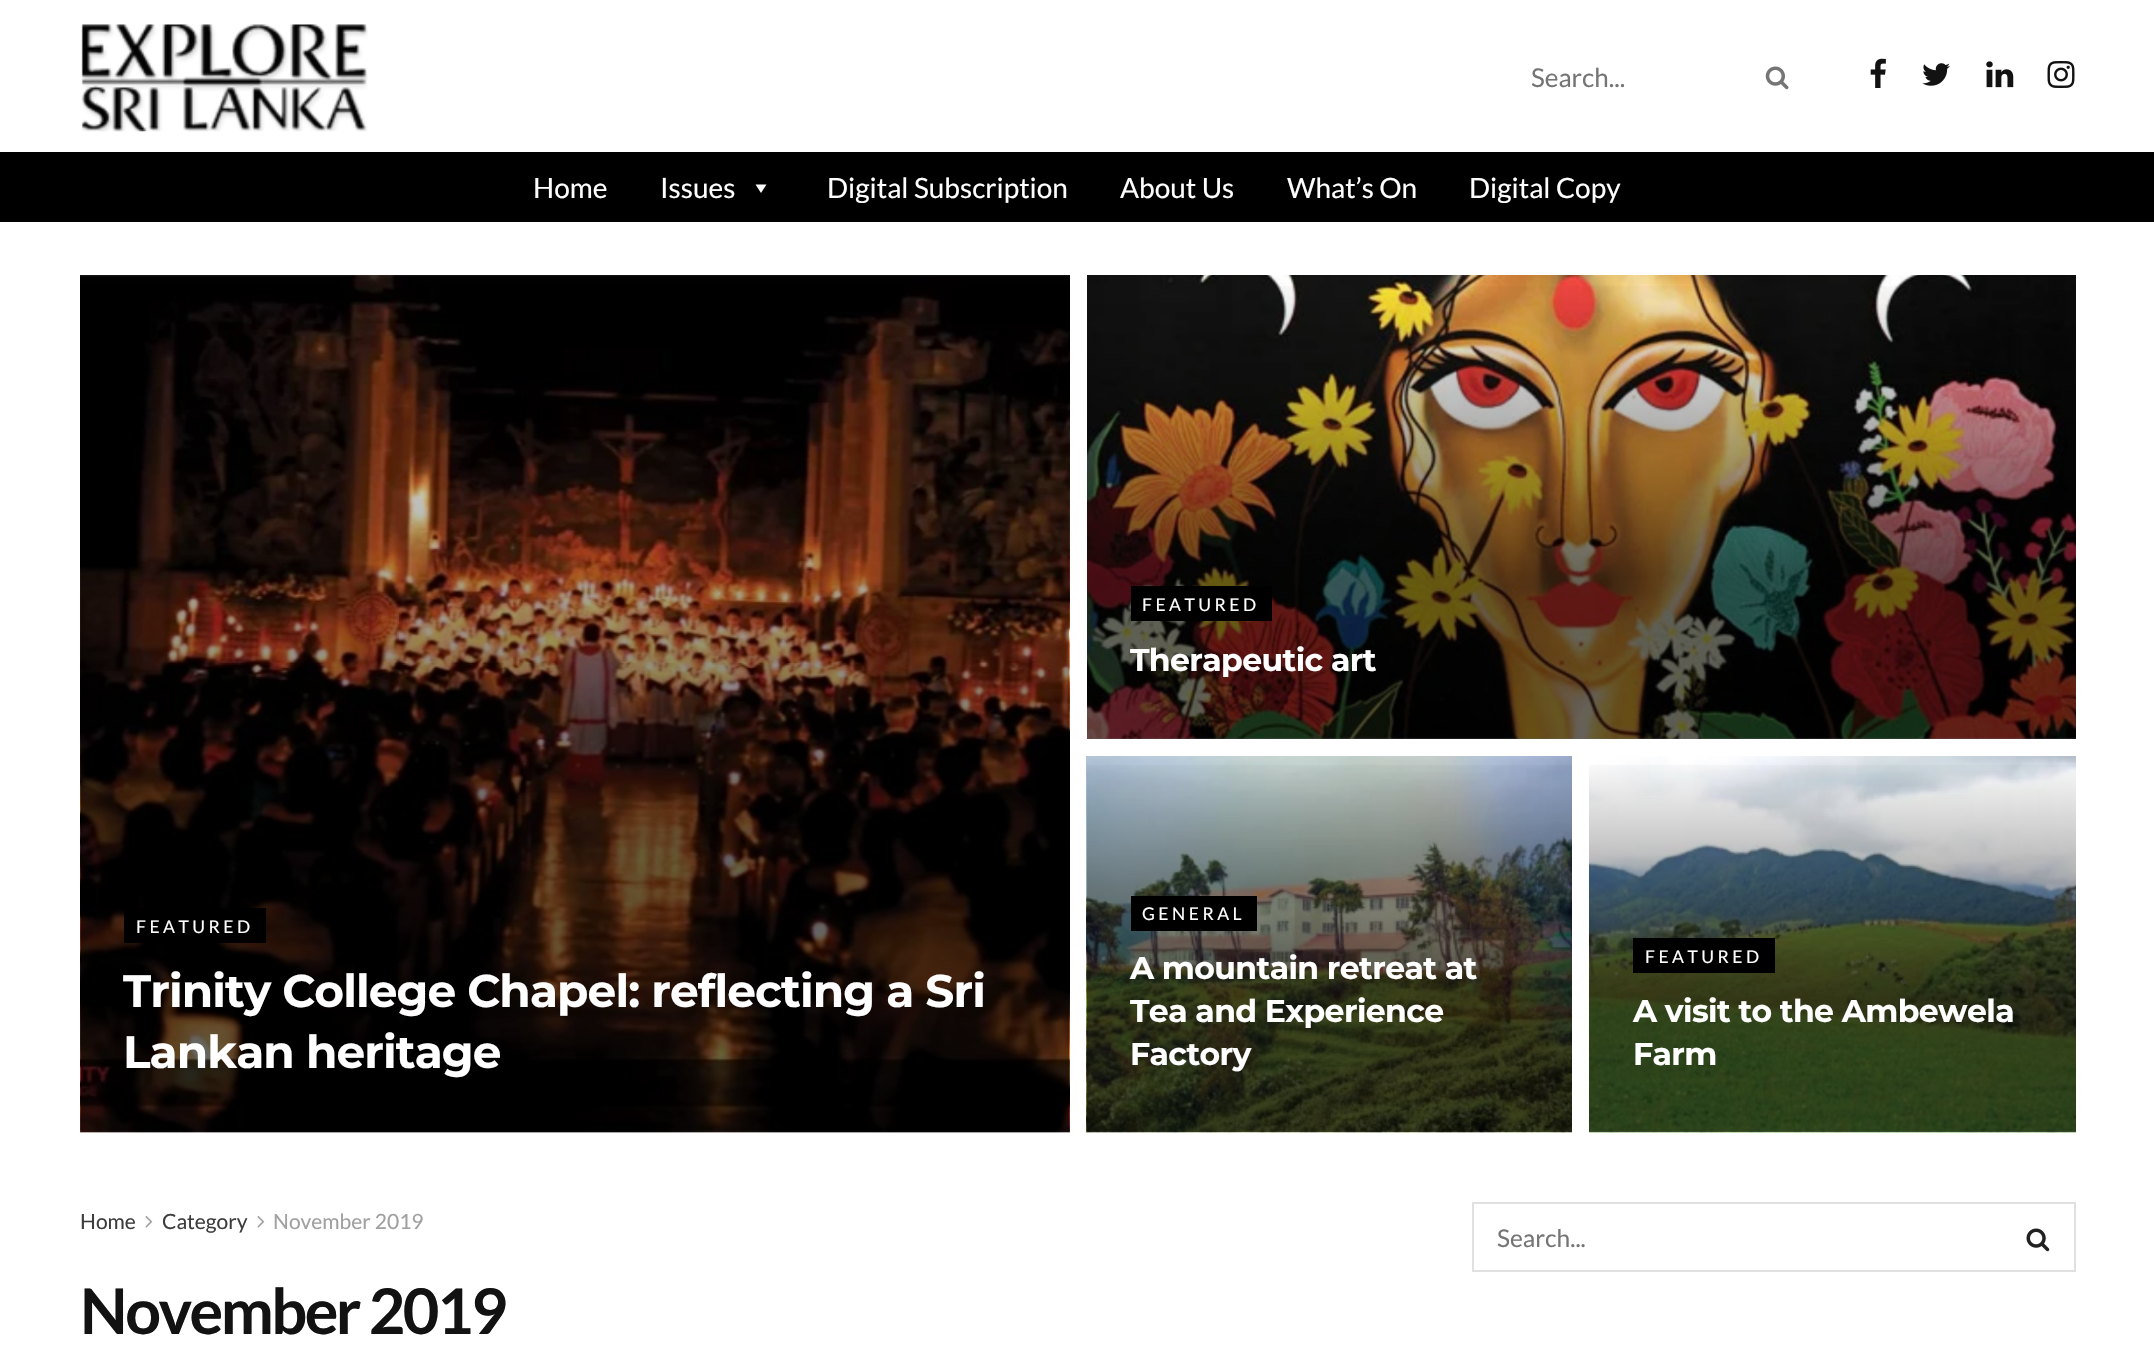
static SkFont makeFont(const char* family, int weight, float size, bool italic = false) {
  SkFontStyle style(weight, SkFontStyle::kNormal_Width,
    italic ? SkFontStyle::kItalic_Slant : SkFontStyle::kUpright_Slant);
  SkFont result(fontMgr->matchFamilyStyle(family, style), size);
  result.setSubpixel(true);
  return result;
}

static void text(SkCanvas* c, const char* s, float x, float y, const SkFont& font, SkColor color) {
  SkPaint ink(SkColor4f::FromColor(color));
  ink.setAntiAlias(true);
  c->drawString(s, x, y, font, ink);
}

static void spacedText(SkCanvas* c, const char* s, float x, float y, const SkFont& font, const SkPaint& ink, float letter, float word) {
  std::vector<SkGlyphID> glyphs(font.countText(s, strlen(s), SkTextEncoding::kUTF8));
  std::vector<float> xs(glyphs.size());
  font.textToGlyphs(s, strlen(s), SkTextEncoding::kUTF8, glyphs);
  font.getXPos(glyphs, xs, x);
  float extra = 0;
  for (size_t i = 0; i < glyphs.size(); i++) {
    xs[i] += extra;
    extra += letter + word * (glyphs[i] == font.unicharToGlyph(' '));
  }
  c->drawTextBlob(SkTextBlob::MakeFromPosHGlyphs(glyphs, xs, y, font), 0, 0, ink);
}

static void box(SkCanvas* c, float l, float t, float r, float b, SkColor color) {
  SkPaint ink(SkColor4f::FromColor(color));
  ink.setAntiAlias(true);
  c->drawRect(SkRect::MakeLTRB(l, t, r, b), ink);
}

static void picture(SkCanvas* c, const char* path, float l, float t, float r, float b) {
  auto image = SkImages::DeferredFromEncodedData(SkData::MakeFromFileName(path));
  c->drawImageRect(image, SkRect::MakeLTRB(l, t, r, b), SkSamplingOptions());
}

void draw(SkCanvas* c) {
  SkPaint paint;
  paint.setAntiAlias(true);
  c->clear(0xffffffff);
  picture(c, "img_01.png", 81, 24, 368, 132);
  SkFont face1 = makeFont("Lato", 400, 26);
  text(c, "Search...", 1531, 87, face1, 0xff757575);
  picture(c, "img_02.png", 1765, 66, 1789, 90);
  picture(c, "img_03.png", 1870, 58, 1886, 88);
  picture(c, "img_04.png", 1922, 63, 1950, 86);
  picture(c, "img_05.png", 1986, 61, 2014, 88);
  picture(c, "img_06.png", 2047, 61, 2075, 88);
  box(c, 0, 152, 2154, 222, 0xff000000);
  SkFont face2 = makeFont("Lato", 400, 28);
  text(c, "Home", 533, 198, face2, 0xffffffff);
  text(c, "Issues", 660, 198, face2, 0xffffffff);
  paint.setColor(0xffffffff);
  c->drawPath(SkPathBuilder().moveTo(766.5f, 184.5f).lineTo(761, 193).lineTo(755.5f, 184.5f).close().detach(), paint);
  text(c, "Digital Subscription", 827, 198, face2, 0xffffffff);
  text(c, "About Us", 1120, 198, face2, 0xffffffff);
  text(c, "What’s On", 1287, 198, face2, 0xffffffff);
  text(c, "Digital Copy", 1469, 198, face2, 0xffffffff);
  picture(c, "img_07.png", 80, 275, 1070, 1133);
  box(c, 124, 908, 266, 943, 0xff000000);
  SkFont face3 = makeFont("Lato", 400, 17.5f);
  spacedText(c, "FEATURED", 136, 933, face3, paint, 3.5f, 0);
  SkFont face4 = makeFont("Montserrat", 700, 45.5f);
  spacedText(c, "Trinity College Chapel: reflecting a Sri", 123, 1007, face4, paint, -0.9f, 0);
  spacedText(c, "Lankan heritage", 123, 1068, face4, paint, -0.9f, 0);
  picture(c, "img_08.png", 1087, 275, 2076, 739);
  {
    const SkColor colors[] = {0x00000000, 0x99000000, 0x99000000};
    const float stops[] = {0, 0.65f, 1};
    const SkPoint ends[] = {{1555, 275}, {1555, 739}};
    paint.setShader(SkGradientShader::MakeLinear(ends, colors, stops, 3, SkTileMode::kClamp));
    paint.setAlpha(255);
  }
  c->drawRect(SkRect::MakeLTRB(1087, 286, 2076, 739), paint);
  box(c, 1131, 586, 1272, 621, 0xff000000);
  paint.setShader(nullptr);
  paint.setColor(0xffffffff);
  spacedText(c, "FEATURED", 1142, 611, face3, paint, 3.5f, 0);
  SkFont face5 = makeFont("Montserrat", 700, 31.5f);
  spacedText(c, "Therapeutic art", 1130, 671, face5, paint, -0.6f, 0);
  picture(c, "img_09.png", 1086, 756, 1572, 1133);
  {
    const SkColor colors[] = {0x00000000, 0x99000000, 0x99000000};
    const float stops[] = {0, 0.65f, 1};
    const SkPoint ends[] = {{1303, 756}, {1303, 1132}};
    paint.setShader(SkGradientShader::MakeLinear(ends, colors, stops, 3, SkTileMode::kClamp));
    paint.setAlpha(255);
  }
  c->drawRect(SkRect::MakeLTRB(1087, 765, 1572, 1132), paint);
  box(c, 1131, 896, 1257, 931, 0xff000000);
  paint.setShader(nullptr);
  paint.setColor(0xffffffff);
  spacedText(c, "GENERAL", 1142, 920, face3, paint, 3.5f, 0);
  spacedText(c, "A mountain retreat at", 1130, 979, face5, paint, -0.6f, 0);
  spacedText(c, "Tea and Experience", 1130, 1022, face5, paint, -0.6f, 0);
  spacedText(c, "Factory", 1130, 1065, face5, paint, -0.6f, 0);
  picture(c, "img_10.png", 1589, 756, 2076, 1133);
  {
    const SkColor colors[] = {0x00000000, 0x99000000, 0x99000000};
    const float stops[] = {0, 0.65f, 1};
    const SkPoint ends[] = {{1806, 756}, {1806, 1132}};
    paint.setShader(SkGradientShader::MakeLinear(ends, colors, stops, 3, SkTileMode::kClamp));
    paint.setAlpha(255);
  }
  c->drawRect(SkRect::MakeLTRB(1589, 765, 2076, 1132), paint);
  box(c, 1633, 938, 1775, 973, 0xff000000);
  paint.setShader(nullptr);
  paint.setColor(0xffffffff);
  spacedText(c, "FEATURED", 1645, 963, face3, paint, 3.5f, 0);
  spacedText(c, "A visit to the Ambewela", 1633, 1022, face5, paint, -0.6f, 0);
  spacedText(c, "Farm", 1633, 1065, face5, paint, -0.6f, 0);
  SkFont face6 = makeFont("Lato", 400, 21);
  text(c, "Home", 80, 1229, face6, 0xff3d3d3d);
  picture(c, "img_11.png", 145, 1216, 153, 1228);
  text(c, "Category", 162, 1229, face6, 0xff3d3d3d);
  picture(c, "img_11.png", 257, 1216, 265, 1228);
  text(c, "November 2019", 273, 1229, face6, 0xffa0a0a0);
  SkFont face7 = makeFont("Lato", 700, 63);
  paint.setColor(0xff121212);
  spacedText(c, "November 2019", 80, 1334, face7, paint, -2.5f, 0);
  paint.setStyle(SkPaint::kStroke_Style);
  paint.setStrokeWidth(2);
  paint.setColor(0xffe0e0e0);
  c->drawRect(SkRect::MakeLTRB(1473, 1203, 2075, 1271), paint);
  SkFont face8 = makeFont("Lato", 400, 24.5f);
  text(c, "Search...", 1497, 1247, face8, 0xff757575);
  picture(c, "img_12.png", 2026, 1228, 2050, 1252);
}
